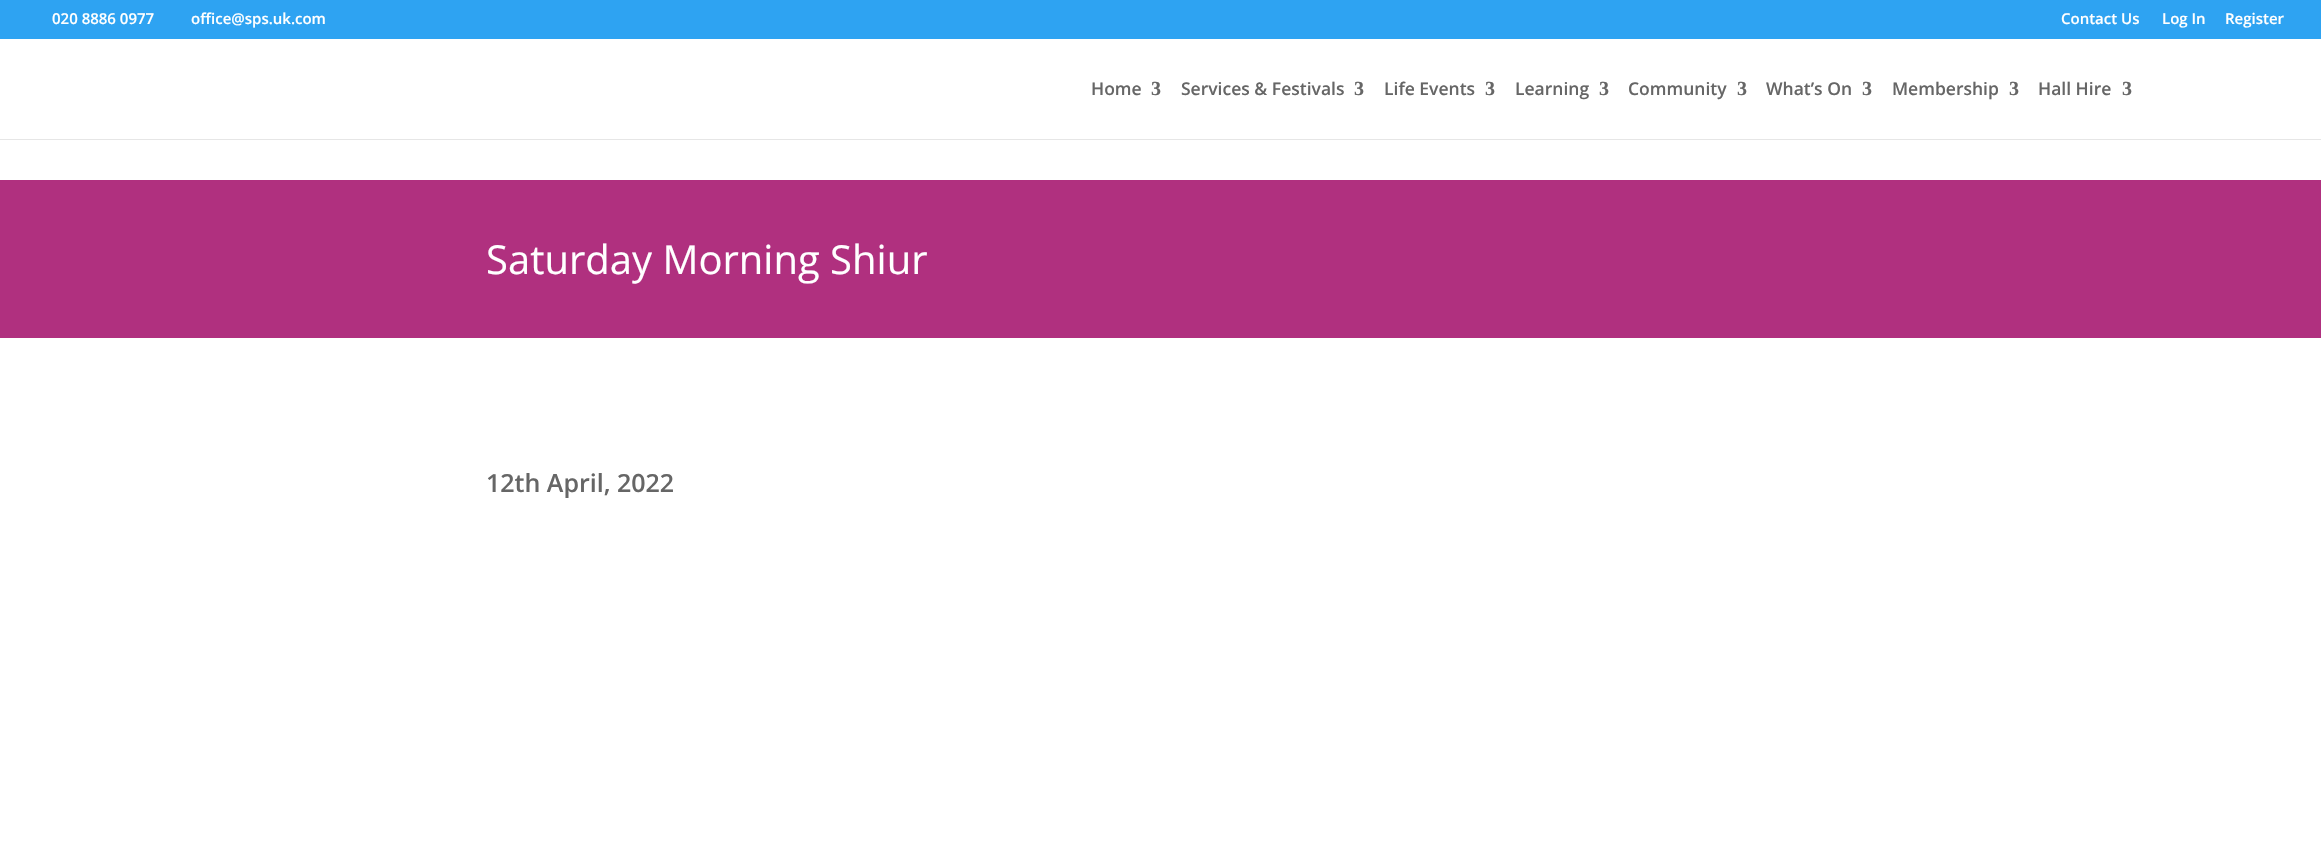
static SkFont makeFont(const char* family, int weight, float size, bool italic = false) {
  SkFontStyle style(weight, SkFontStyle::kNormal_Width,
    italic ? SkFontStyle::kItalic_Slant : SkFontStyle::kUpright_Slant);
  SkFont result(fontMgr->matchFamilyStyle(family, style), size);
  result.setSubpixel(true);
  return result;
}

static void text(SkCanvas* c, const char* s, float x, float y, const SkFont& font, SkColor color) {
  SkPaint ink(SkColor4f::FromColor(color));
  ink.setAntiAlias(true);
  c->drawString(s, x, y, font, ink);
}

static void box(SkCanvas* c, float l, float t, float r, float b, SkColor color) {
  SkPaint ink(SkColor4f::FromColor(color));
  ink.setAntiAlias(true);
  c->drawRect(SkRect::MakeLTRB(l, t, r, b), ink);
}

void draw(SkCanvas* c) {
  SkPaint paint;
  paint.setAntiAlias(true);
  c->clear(0xffffffff);
  box(c, 0, 0, 2321, 39, 0xff2ea3f2);
  SkFont face1 = makeFont("Open Sans", 600, 15);
  text(c, "020 8886 0977", 52, 24, face1, 0xffffffff);
  text(c, "office@sps.uk.com", 191, 24, face1, 0xffffffff);
  text(c, "Contact Us", 2061, 24, face1, 0xffffffff);
  text(c, "Log In", 2162, 24, face1, 0xffffffff);
  text(c, "Register", 2225, 24, face1, 0xffffffff);
  box(c, 0, 139, 2321, 140, 0xffe6e6e6);
  SkFont face2 = makeFont("Open Sans", 600, 17.5f);
  text(c, "Home", 1091, 95, face2, 0xff666666);
  SkFont face3 = makeFont("Liberation Serif", 700, 20);
  text(c, "3", 1151, 95, face3, 0xff666666);
  text(c, "Services & Festivals", 1181, 95, face2, 0xff666666);
  text(c, "3", 1354, 95, face3, 0xff666666);
  text(c, "Life Events", 1384, 95, face2, 0xff666666);
  text(c, "3", 1485, 95, face3, 0xff666666);
  text(c, "Learning", 1515, 95, face2, 0xff666666);
  text(c, "3", 1599, 95, face3, 0xff666666);
  text(c, "Community", 1628, 95, face2, 0xff666666);
  text(c, "3", 1737, 95, face3, 0xff666666);
  text(c, "What’s On", 1766, 95, face2, 0xff666666);
  text(c, "3", 1862, 95, face3, 0xff666666);
  text(c, "Membership", 1892, 95, face2, 0xff666666);
  text(c, "3", 2009, 95, face3, 0xff666666);
  text(c, "Hall Hire", 2038, 95, face2, 0xff666666);
  text(c, "3", 2122, 95, face3, 0xff666666);
  box(c, 0, 180, 2321, 338, 0xffb0307f);
  SkFont face4 = makeFont("Open Sans", 400, 40);
  text(c, "Saturday Morning Shiur", 486, 274, face4, 0xffffffff);
  SkFont face5 = makeFont("Open Sans", 600, 25);
  text(c, "12th April, 2022", 486, 492, face5, 0xff666666);
}
